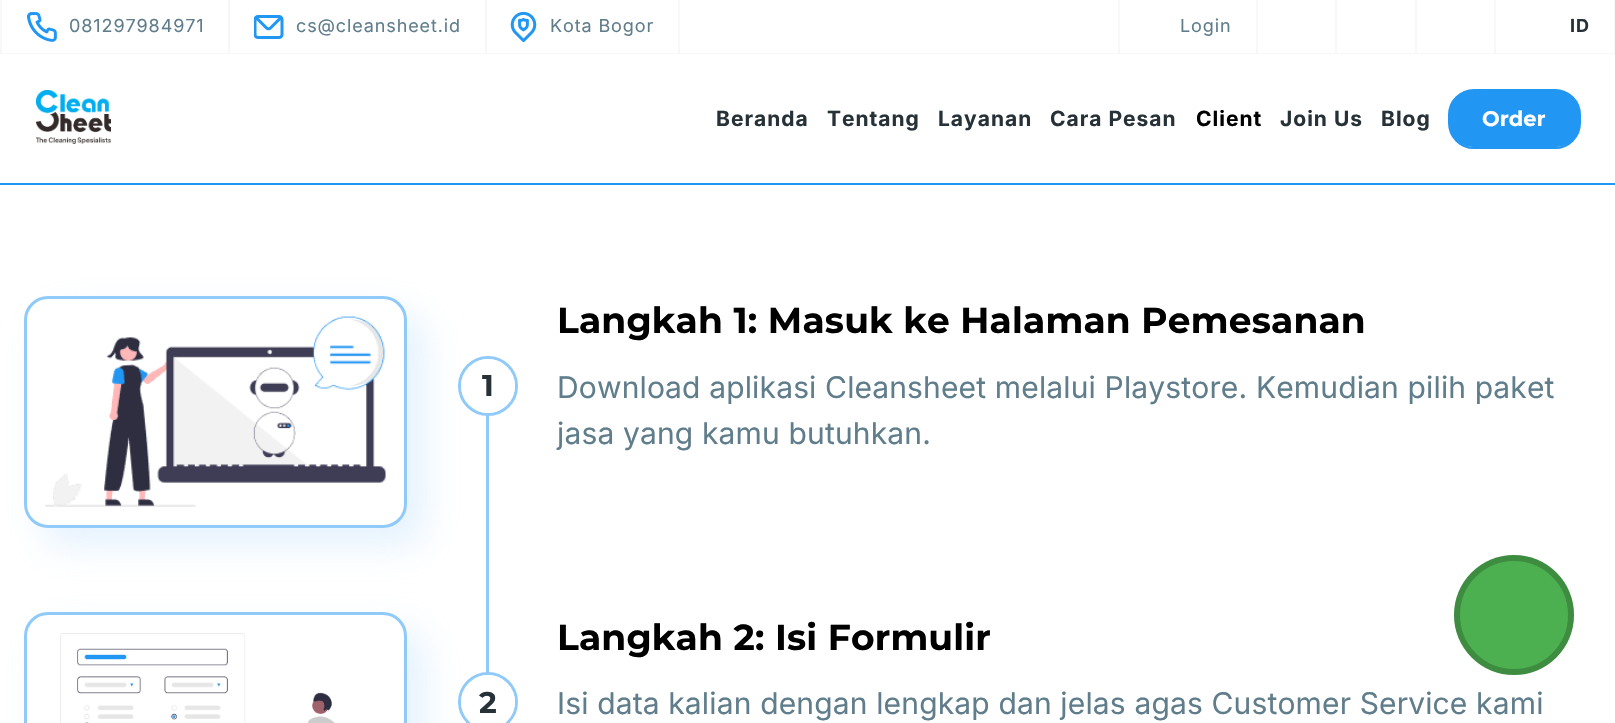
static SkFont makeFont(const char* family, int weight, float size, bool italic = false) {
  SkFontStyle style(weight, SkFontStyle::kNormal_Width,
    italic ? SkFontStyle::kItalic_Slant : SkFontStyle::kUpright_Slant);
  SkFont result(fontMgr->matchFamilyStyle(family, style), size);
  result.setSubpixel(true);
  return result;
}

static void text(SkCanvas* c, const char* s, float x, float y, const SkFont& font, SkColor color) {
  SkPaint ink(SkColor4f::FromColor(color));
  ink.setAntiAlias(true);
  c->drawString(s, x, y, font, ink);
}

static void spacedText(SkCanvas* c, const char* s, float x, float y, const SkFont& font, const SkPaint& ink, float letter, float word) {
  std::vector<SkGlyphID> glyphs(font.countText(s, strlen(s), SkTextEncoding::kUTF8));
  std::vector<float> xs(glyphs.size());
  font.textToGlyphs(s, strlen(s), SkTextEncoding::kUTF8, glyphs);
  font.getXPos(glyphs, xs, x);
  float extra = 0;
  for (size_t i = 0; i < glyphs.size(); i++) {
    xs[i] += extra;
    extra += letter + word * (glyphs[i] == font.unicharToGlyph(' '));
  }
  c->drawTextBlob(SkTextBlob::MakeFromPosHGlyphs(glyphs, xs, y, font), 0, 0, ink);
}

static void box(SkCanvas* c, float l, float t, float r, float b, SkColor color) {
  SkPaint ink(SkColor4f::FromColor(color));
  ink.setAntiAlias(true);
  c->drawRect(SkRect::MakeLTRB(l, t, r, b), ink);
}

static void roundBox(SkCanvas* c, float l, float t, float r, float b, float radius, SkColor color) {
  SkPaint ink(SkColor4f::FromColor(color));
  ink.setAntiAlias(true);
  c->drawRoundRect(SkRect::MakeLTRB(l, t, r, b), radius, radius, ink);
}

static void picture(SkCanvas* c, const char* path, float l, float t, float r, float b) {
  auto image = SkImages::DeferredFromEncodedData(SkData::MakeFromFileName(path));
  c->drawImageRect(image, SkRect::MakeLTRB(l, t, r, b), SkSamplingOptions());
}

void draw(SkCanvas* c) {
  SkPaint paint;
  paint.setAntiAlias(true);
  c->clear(0xffffffff);
  box(c, 0, 53, 1615, 54, 0xfff5f7f8);
  box(c, 0, 0, 2, 54, 0xfff5f7f8);
  picture(c, "img_01.png", 27, 12, 57, 42);
  SkFont face1 = makeFont("Inter", 400, 18);
  paint.setColor(0xff607d8b);
  spacedText(c, "081297984971", 69, 32, face1, paint, 0.9f, 0);
  box(c, 485, 0, 487, 54, 0xfff5f7f8);
  box(c, 228, 0, 230, 54, 0xfff5f7f8);
  picture(c, "img_02.png", 254, 15, 284, 39);
  spacedText(c, "cs@cleansheet.id", 296, 32, face1, paint, 0.9f, 0);
  box(c, 678, 0, 680, 54, 0xfff5f7f8);
  picture(c, "img_03.png", 510, 11, 537, 43);
  spacedText(c, "Kota Bogor", 550, 32, face1, paint, 0.9f, 0);
  box(c, 1118, 0, 1120, 54, 0xfff5f7f8);
  spacedText(c, "Login", 1180, 32, face1, paint, 0.9f, 0);
  box(c, 1256, 0, 1258, 54, 0xfff5f7f8);
  box(c, 1415, 0, 1417, 54, 0xfff5f7f8);
  box(c, 1335, 0, 1337, 54, 0xfff5f7f8);
  box(c, 1494, 0, 1496, 54, 0xfff5f7f8);
  box(c, 1614, 0, 1615, 54, 0xfff5f7f8);
  SkFont face2 = makeFont("Inter", 700, 18);
  paint.setColor(0xff263238);
  spacedText(c, "ID", 1570, 32, face2, paint, 0.9f, 0);
  box(c, 0, 183, 1615, 185, 0xff2196f3);
  picture(c, "img_04.png", 36, 90, 111, 144);
  SkFont face3 = makeFont("Inter", 700, 21);
  spacedText(c, "Beranda", 716, 126, face3, paint, 1, 0);
  spacedText(c, "Tentang", 827, 126, face3, paint, 1, 0);
  spacedText(c, "Layanan", 938, 126, face3, paint, 1, 0);
  spacedText(c, "Cara Pesan", 1050, 126, face3, paint, 1, 0);
  paint.setColor(0xff000000);
  spacedText(c, "Client", 1196, 126, face3, paint, 1, 0);
  paint.setColor(0xff263238);
  spacedText(c, "Join Us", 1280, 126, face3, paint, 1, 0);
  spacedText(c, "Blog", 1381, 126, face3, paint, 1, 0);
  paint.setStyle(SkPaint::kStroke_Style);
  paint.setStrokeWidth(2);
  paint.setColor(0xff2196f3);
  c->drawRoundRect(SkRect::MakeLTRB(1449, 90, 1580, 148), 25, 25, paint);
  roundBox(c, 1449, 90, 1580, 147, 24, 0xff2196f3);
  SkFont face4 = makeFont("Montserrat", 700, 21);
  text(c, "Order", 1482, 126, face4, 0xffffffff);
  paint.setStyle(SkPaint::kFill_Style);
  paint.setColor(0x3d90caf9);
  paint.setMaskFilter(SkMaskFilter::MakeBlur(kNormal_SkBlurStyle, 18));
  c->drawRoundRect(SkRect::MakeLTRB(42, 314, 425, 546), 24, 24, paint);
  paint.setMaskFilter(nullptr);
  paint.setColor(0xffffffff);
  c->drawRoundRect(SkRect::MakeLTRB(25.5f, 297.5f, 405.5f, 526.5f), 22.5f, 22.5f, paint);
  paint.setStyle(SkPaint::kStroke_Style);
  paint.setStrokeWidth(3);
  paint.setColor(0xff90caf9);
  c->drawRoundRect(SkRect::MakeLTRB(25.5f, 297.5f, 405.5f, 526.5f), 22.5f, 22.5f, paint);
  picture(c, "img_05.png", 45, 316, 386, 507);
  box(c, 486, 413, 489, 676, 0xff90caf9);
  c->drawCircle(488, 386, 28.5f, paint);
  paint.setStyle(SkPaint::kFill_Style);
  paint.setColor(0xffffffff);
  c->drawCircle(488, 386, 27, paint);
  SkFont face5 = makeFont("Montserrat", 700, 30);
  text(c, "1", 482, 396, face5, 0xff263238);
  SkFont face6 = makeFont("Montserrat", 700, 36);
  paint.setColor(0xff000000);
  spacedText(c, "Langkah 1: Masuk ke Halaman Pemesanan", 557, 333, face6, paint, 0.2f, 0);
  SkFont face7 = makeFont("Inter", 400, 30);
  paint.setColor(0xff607d8b);
  spacedText(c, "Download aplikasi Cleansheet melalui Playstore. Kemudian pilih paket", 557, 398, face7, paint, 0.15f, 0);
  spacedText(c, "jasa yang kamu butuhkan.", 557, 444, face7, paint, 0.15f, 0);
  paint.setColor(0x3d90caf9);
  paint.setMaskFilter(SkMaskFilter::MakeBlur(kNormal_SkBlurStyle, 18));
  c->drawRoundRect(SkRect::MakeLTRB(42, 630, 425, 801), 24, 24, paint);
  paint.setMaskFilter(nullptr);
  paint.setColor(0xffffffff);
  c->drawRoundRect(SkRect::MakeLTRB(25.5f, 613.5f, 405.5f, 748.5f), 22.5f, 22.5f, paint);
  paint.setStyle(SkPaint::kStroke_Style);
  paint.setColor(0xff90caf9);
  c->drawRoundRect(SkRect::MakeLTRB(25.5f, 613.5f, 405.5f, 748.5f), 22.5f, 22.5f, paint);
  picture(c, "img_06.png", 60, 633, 335, 723);
  c->drawCircle(488, 702, 28.5f, paint);
  paint.setStyle(SkPaint::kFill_Style);
  paint.setColor(0xffffffff);
  c->drawCircle(488, 702, 27, paint);
  text(c, "2", 479, 713, face5, 0xff263238);
  paint.setColor(0xff000000);
  spacedText(c, "Langkah 2: Isi Formulir", 557, 650, face6, paint, 0.2f, 0);
  paint.setColor(0xff607d8b);
  spacedText(c, "Isi data kalian dengan lengkap dan jelas agas Customer Service kami", 557, 714, face7, paint, 0.15f, 0);
  paint.setColor(0xff4caf50);
  c->drawCircle(1514, 615, 60, paint);
  paint.setStyle(SkPaint::kStroke_Style);
  paint.setStrokeWidth(6);
  paint.setColor(0x33000000);
  c->drawCircle(1514, 615, 57, paint);
}
